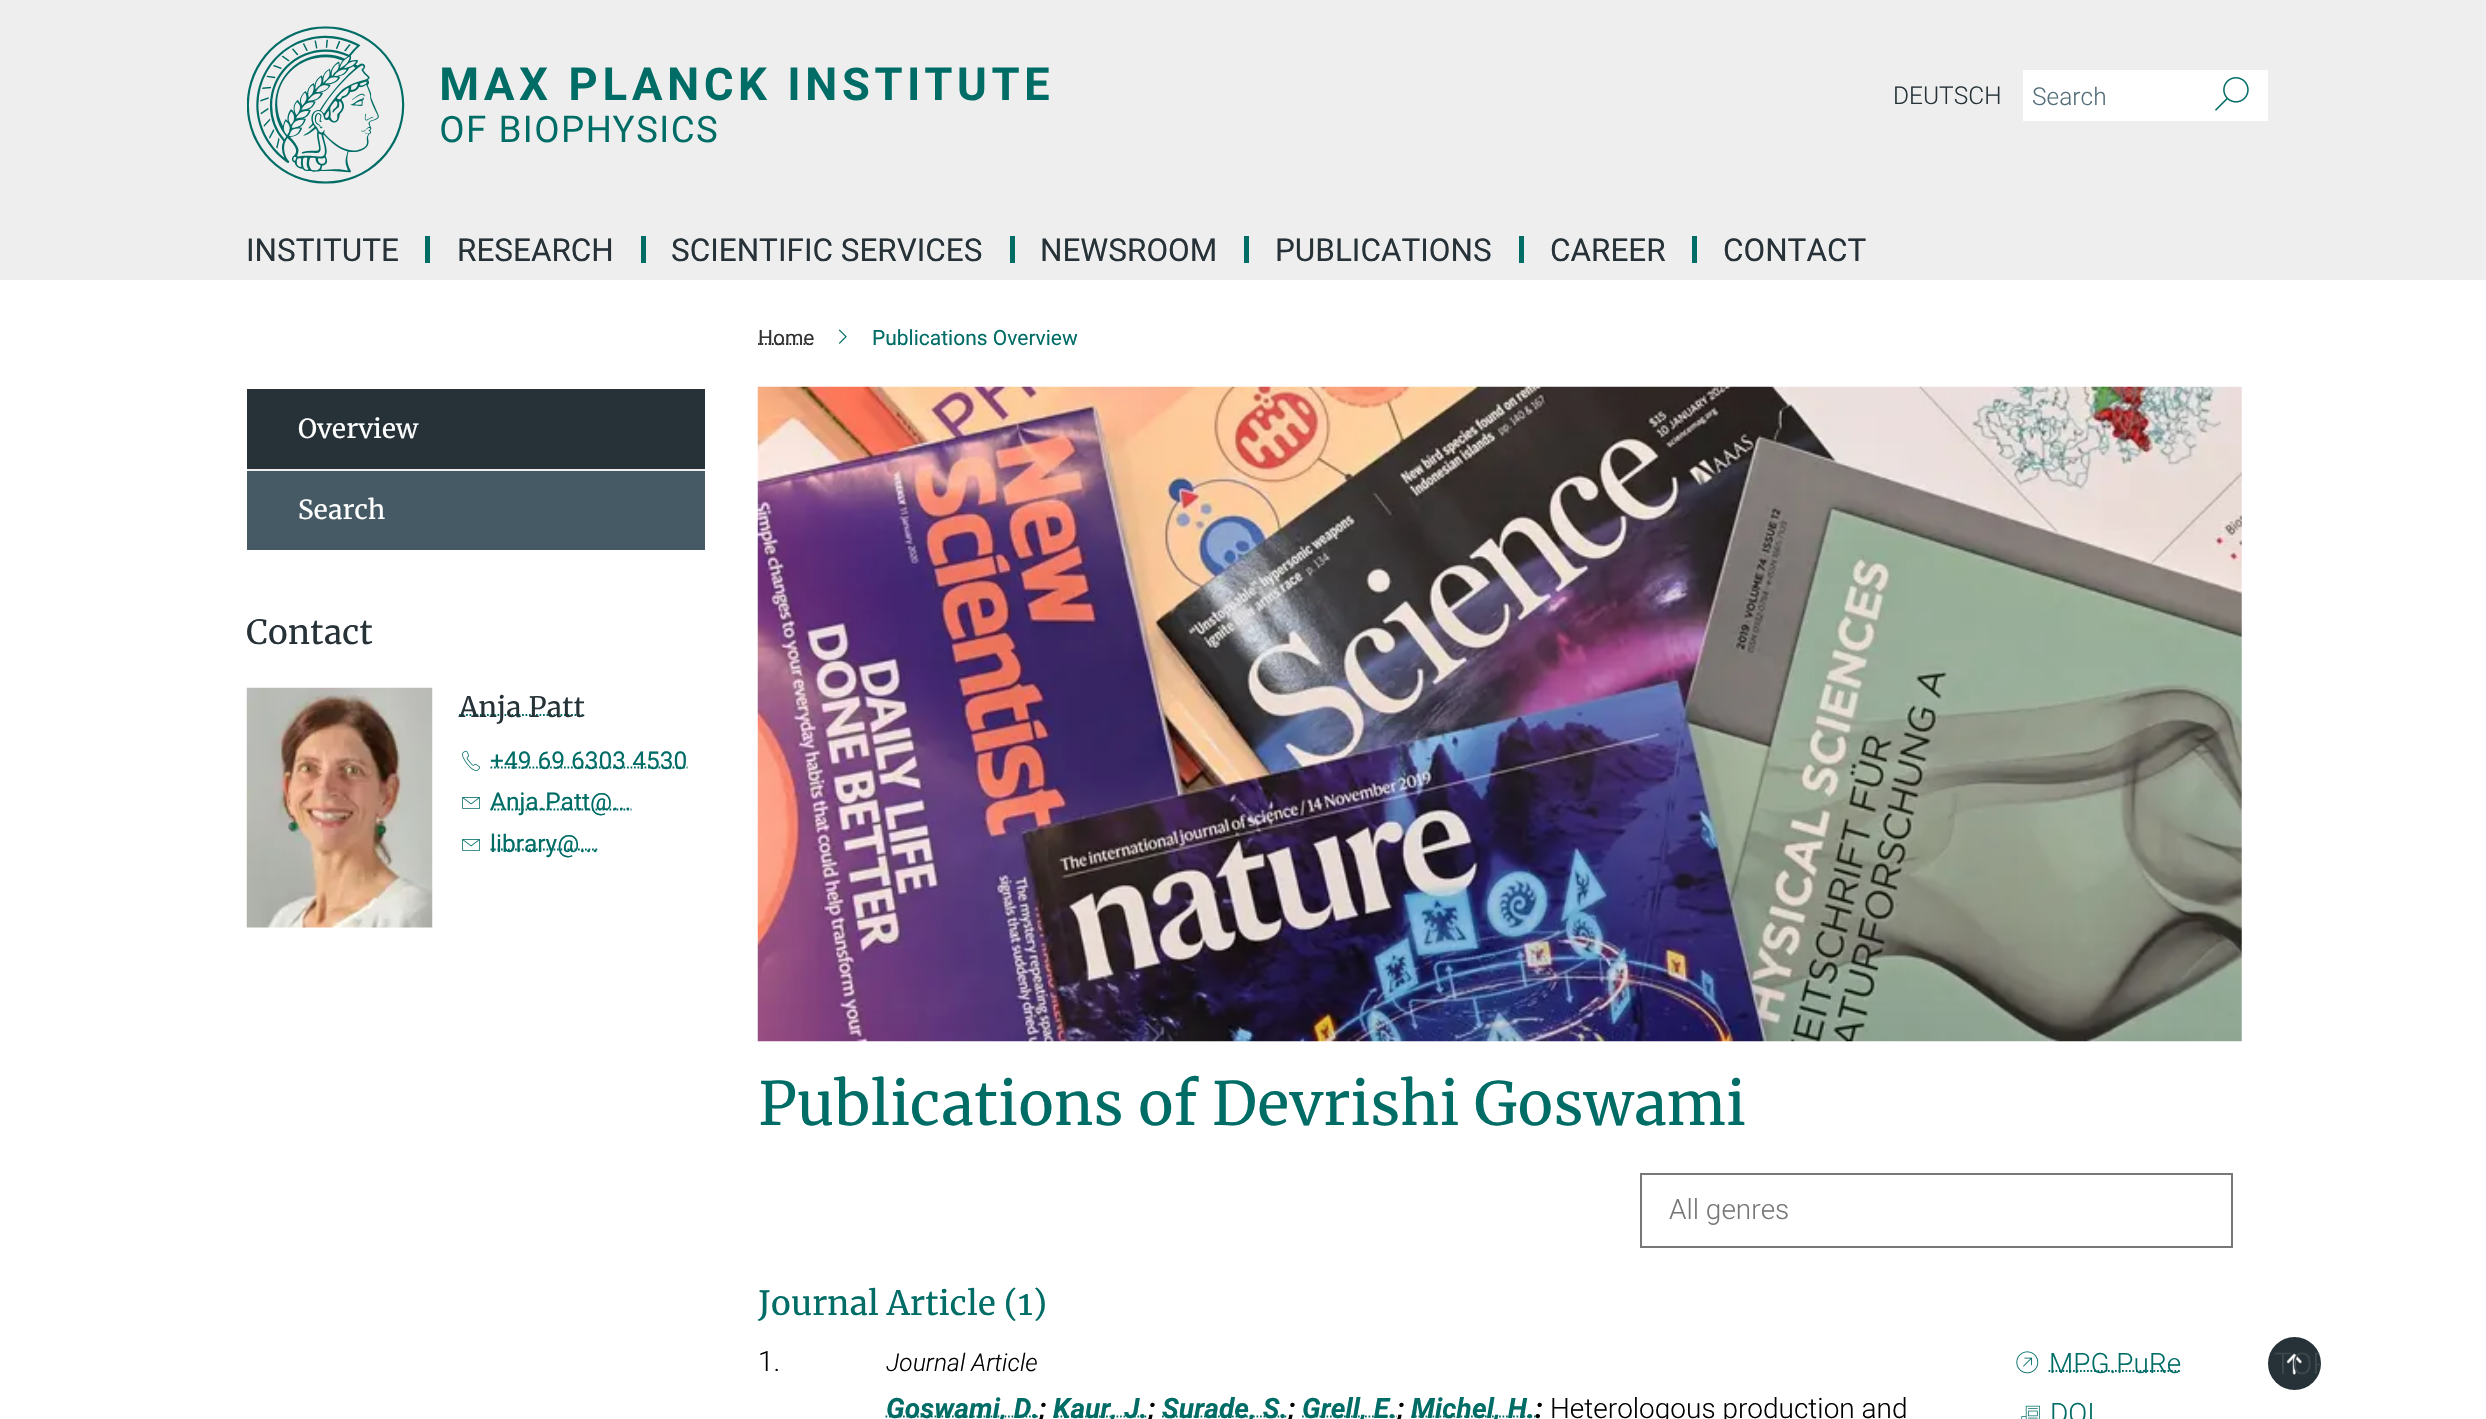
static SkFont makeFont(const char* family, int weight, float size, bool italic = false) {
  SkFontStyle style(weight, SkFontStyle::kNormal_Width,
    italic ? SkFontStyle::kItalic_Slant : SkFontStyle::kUpright_Slant);
  SkFont result(fontMgr->matchFamilyStyle(family, style), size);
  result.setSubpixel(true);
  return result;
}

static void text(SkCanvas* c, const char* s, float x, float y, const SkFont& font, SkColor color) {
  SkPaint ink(SkColor4f::FromColor(color));
  ink.setAntiAlias(true);
  c->drawString(s, x, y, font, ink);
}

static void box(SkCanvas* c, float l, float t, float r, float b, SkColor color) {
  SkPaint ink(SkColor4f::FromColor(color));
  ink.setAntiAlias(true);
  c->drawRect(SkRect::MakeLTRB(l, t, r, b), ink);
}

static void picture(SkCanvas* c, const char* path, float l, float t, float r, float b) {
  auto image = SkImages::DeferredFromEncodedData(SkData::MakeFromFileName(path));
  c->drawImageRect(image, SkRect::MakeLTRB(l, t, r, b), SkSamplingOptions());
}

void draw(SkCanvas* c) {
  SkPaint paint;
  paint.setAntiAlias(true);
  c->clear(0xffffffff);
  box(c, 0, 0, 2486, 280, 0xffeeeeee);
  picture(c, "img_01.png", 247, 26, 1049, 184);
  SkFont face1 = makeFont("Roboto", 300, 24.5f);
  text(c, "DEUTSCH", 1893, 104, face1, 0xff263238);
  box(c, 2023, 70, 2268, 121, 0xffffffff);
  text(c, "Search", 2032, 105, face1, 0xff546e7a);
  picture(c, "img_02.png", 2215, 77, 2249, 111);
  box(c, 425, 236, 430, 263, 0xff006c66);
  SkFont face2 = makeFont("Roboto", 400, 31.5f);
  text(c, "INSTITUTE", 246, 261, face2, 0xff263238);
  box(c, 641, 236, 646, 263, 0xff006c66);
  text(c, "RESEARCH", 457, 261, face2, 0xff263238);
  box(c, 1010, 236, 1015, 263, 0xff006c66);
  text(c, "SCIENTIFIC SERVICES", 671, 261, face2, 0xff263238);
  box(c, 1244, 236, 1249, 263, 0xff006c66);
  text(c, "NEWSROOM", 1040, 261, face2, 0xff263238);
  box(c, 1519, 236, 1524, 263, 0xff006c66);
  text(c, "PUBLICATIONS", 1275, 261, face2, 0xff263238);
  box(c, 1692, 236, 1697, 263, 0xff006c66);
  text(c, "CAREER", 1550, 261, face2, 0xff263238);
  text(c, "CONTACT", 1723, 261, face2, 0xff263238);
  box(c, 247, 389, 705, 469, 0xff263238);
  box(c, 247, 469, 705, 471, 0xffeeeeee);
  SkFont face3 = makeFont("Merriweather", 400, 26.25f);
  text(c, "Overview", 298, 438, face3, 0xffffffff);
  box(c, 247, 471, 705, 550, 0xff455a64);
  text(c, "Search", 298, 519, face3, 0xffffffff);
  SkFont face4 = makeFont("Merriweather", 400, 33.25f);
  text(c, "Contact", 246, 644, face4, 0xff263238);
  picture(c, "img_03.png", 246, 687, 433, 928);
  paint.setStyle(SkPaint::kStroke_Style);
  paint.setStrokeWidth(1.8f);
  paint.setColor(0xff006c66);
  paint.setPathEffect(SkDashPathEffect::Make({{1.75f, 1.75f}}, 0));
  c->drawPath(SkPathBuilder().moveTo(459, 715).lineTo(585, 715).detach(), paint);
  paint.setPathEffect(nullptr);
  SkFont face5 = makeFont("Merriweather", 400, 28);
  text(c, "Anja Patt", 459, 717, face5, 0xff263238);
  picture(c, "img_04.png", 462, 750, 480, 771);
  paint.setPathEffect(SkDashPathEffect::Make({{1.75f, 1.75f}}, 0));
  c->drawPath(SkPathBuilder().moveTo(490.5f, 767.5f).lineTo(687.5f, 767.5f).detach(), paint);
  paint.setPathEffect(nullptr);
  SkFont face6 = makeFont("Roboto", 400, 24.5f);
  text(c, "+49 69 6303 4530", 490, 769, face6, 0xff006c66);
  picture(c, "img_05.png", 462, 797, 480, 809);
  paint.setPathEffect(SkDashPathEffect::Make({{1.75f, 1.75f}}, 0));
  c->drawPath(SkPathBuilder().moveTo(490.5f, 809.5f).lineTo(631.5f, 809.5f).detach(), paint);
  paint.setPathEffect(nullptr);
  text(c, "Anja.Patt@...", 490, 810, face6, 0xff006c66);
  picture(c, "img_05.png", 462, 839, 480, 851);
  paint.setPathEffect(SkDashPathEffect::Make({{1.75f, 1.75f}}, 0));
  c->drawPath(SkPathBuilder().moveTo(490.5f, 849.5f).lineTo(599, 849.5f).detach(), paint);
  paint.setPathEffect(nullptr);
  text(c, "library@...", 490, 852, face6, 0xff006c66);
  paint.setColor(0xff333333);
  paint.setPathEffect(SkDashPathEffect::Make({{1.75f, 1.75f}}, 0));
  c->drawPath(SkPathBuilder().moveTo(758, 344).lineTo(814, 344).detach(), paint);
  paint.setPathEffect(nullptr);
  SkFont face7 = makeFont("Roboto", 400, 21);
  text(c, "Home", 758, 345, face7, 0xff333333);
  picture(c, "img_06.png", 838, 329, 847, 344);
  text(c, "Publications Overview", 872, 345, face7, 0xff006c66);
  picture(c, "img_07.png", 757, 386, 2242, 1042);
  SkFont face8 = makeFont("Merriweather", 400, 59.5f);
  text(c, "Publications of Devrishi Goswami", 758, 1125, face8, 0xff006c66);
  paint.setStrokeWidth(2);
  paint.setColor(0xff777777);
  c->drawRect(SkRect::MakeLTRB(1641, 1174, 2232, 1247), paint);
  SkFont face9 = makeFont("Roboto", 300, 28);
  text(c, "All genres", 1669, 1219, face9, 0xff777777);
  text(c, "Journal Article (1)", 758, 1315, face4, 0xff006c66);
  text(c, "1.", 758, 1371, face9, 0xff000000);
  SkFont face10 = makeFont("Roboto", 300, 24.5f, true);
  text(c, "Journal Article", 886, 1371, face10, 0xff000000);
  paint.setStrokeWidth(1.8f);
  paint.setColor(0xff006c66);
  paint.setPathEffect(SkDashPathEffect::Make({{1.75f, 1.75f}}, 0));
  c->drawPath(SkPathBuilder().moveTo(885.5f, 1416.5f).lineTo(1039, 1416.5f).detach(), paint);
  paint.setPathEffect(nullptr);
  SkFont face11 = makeFont("Roboto", 700, 28, true);
  text(c, "Goswami, D.", 886, 1418, face11, 0xff006c66);
  text(c, ";", 1039, 1418, face11, 0xff000000);
  paint.setPathEffect(SkDashPathEffect::Make({{1.75f, 1.75f}}, 0));
  c->drawPath(SkPathBuilder().moveTo(1053.5f, 1416.5f).lineTo(1148, 1416.5f).detach(), paint);
  paint.setPathEffect(nullptr);
  text(c, "Kaur, J.", 1053, 1418, face11, 0xff006c66);
  text(c, ";", 1148, 1418, face11, 0xff000000);
  paint.setPathEffect(SkDashPathEffect::Make({{1.75f, 1.75f}}, 0));
  c->drawPath(SkPathBuilder().moveTo(1162, 1416.5f).lineTo(1287.5f, 1416.5f).detach(), paint);
  paint.setPathEffect(nullptr);
  text(c, "Surade, S.", 1162, 1418, face11, 0xff006c66);
  text(c, ";", 1288, 1418, face11, 0xff000000);
  paint.setPathEffect(SkDashPathEffect::Make({{1.75f, 1.75f}}, 0));
  c->drawPath(SkPathBuilder().moveTo(1302, 1416.5f).lineTo(1397, 1416.5f).detach(), paint);
  paint.setPathEffect(nullptr);
  text(c, "Grell, E.", 1302, 1418, face11, 0xff006c66);
  text(c, ";", 1397, 1418, face11, 0xff000000);
  paint.setPathEffect(SkDashPathEffect::Make({{1.75f, 1.75f}}, 0));
  c->drawPath(SkPathBuilder().moveTo(1411.5f, 1416.5f).lineTo(1535.5f, 1416.5f).detach(), paint);
  paint.setPathEffect(nullptr);
  text(c, "Michel, H.", 1411, 1418, face11, 0xff006c66);
  text(c, ":", 1535, 1418, face11, 0xff000000);
  text(c, "Heterologous production and", 1550, 1418, face9, 0xff000000);
  picture(c, "img_08.png", 2016, 1351, 2039, 1374);
  paint.setPathEffect(SkDashPathEffect::Make({{1.75f, 1.75f}}, 0));
  c->drawPath(SkPathBuilder().moveTo(2048.5f, 1371).lineTo(2181, 1371).detach(), paint);
  paint.setPathEffect(nullptr);
  text(c, "MPG.PuRe", 2049, 1373, face9, 0xff006c66);
  picture(c, "img_09.png", 2021, 1405, 2040, 1419);
  text(c, "DOI", 2050, 1423, face9, 0xff006c66);
  paint.setStyle(SkPaint::kFill_Style);
  paint.setColor(0xff263238);
  c->drawCircle(2294.5f, 1363.5f, 26.5f, paint);
  picture(c, "img_10.png", 2286, 1353, 2302, 1375);
  c->save();
  c->clipPath(SkPathBuilder().moveTo(2294.5f, 1337).cubicTo(2309, 1337, 2321, 1349, 2321, 1363.5f).cubicTo(2321, 1378, 2309, 1390, 2294.5f, 1390).cubicTo(2280, 1390, 2268, 1378, 2268, 1363.5f).cubicTo(2268, 1349, 2280, 1337, 2294.5f, 1337).close().detach(), true);
  SkFont face12 = makeFont("Roboto", 300, 30);
  text(c, "TOP", 2274, 1374, face12, 0xff3d484d);
  c->restore();
}
